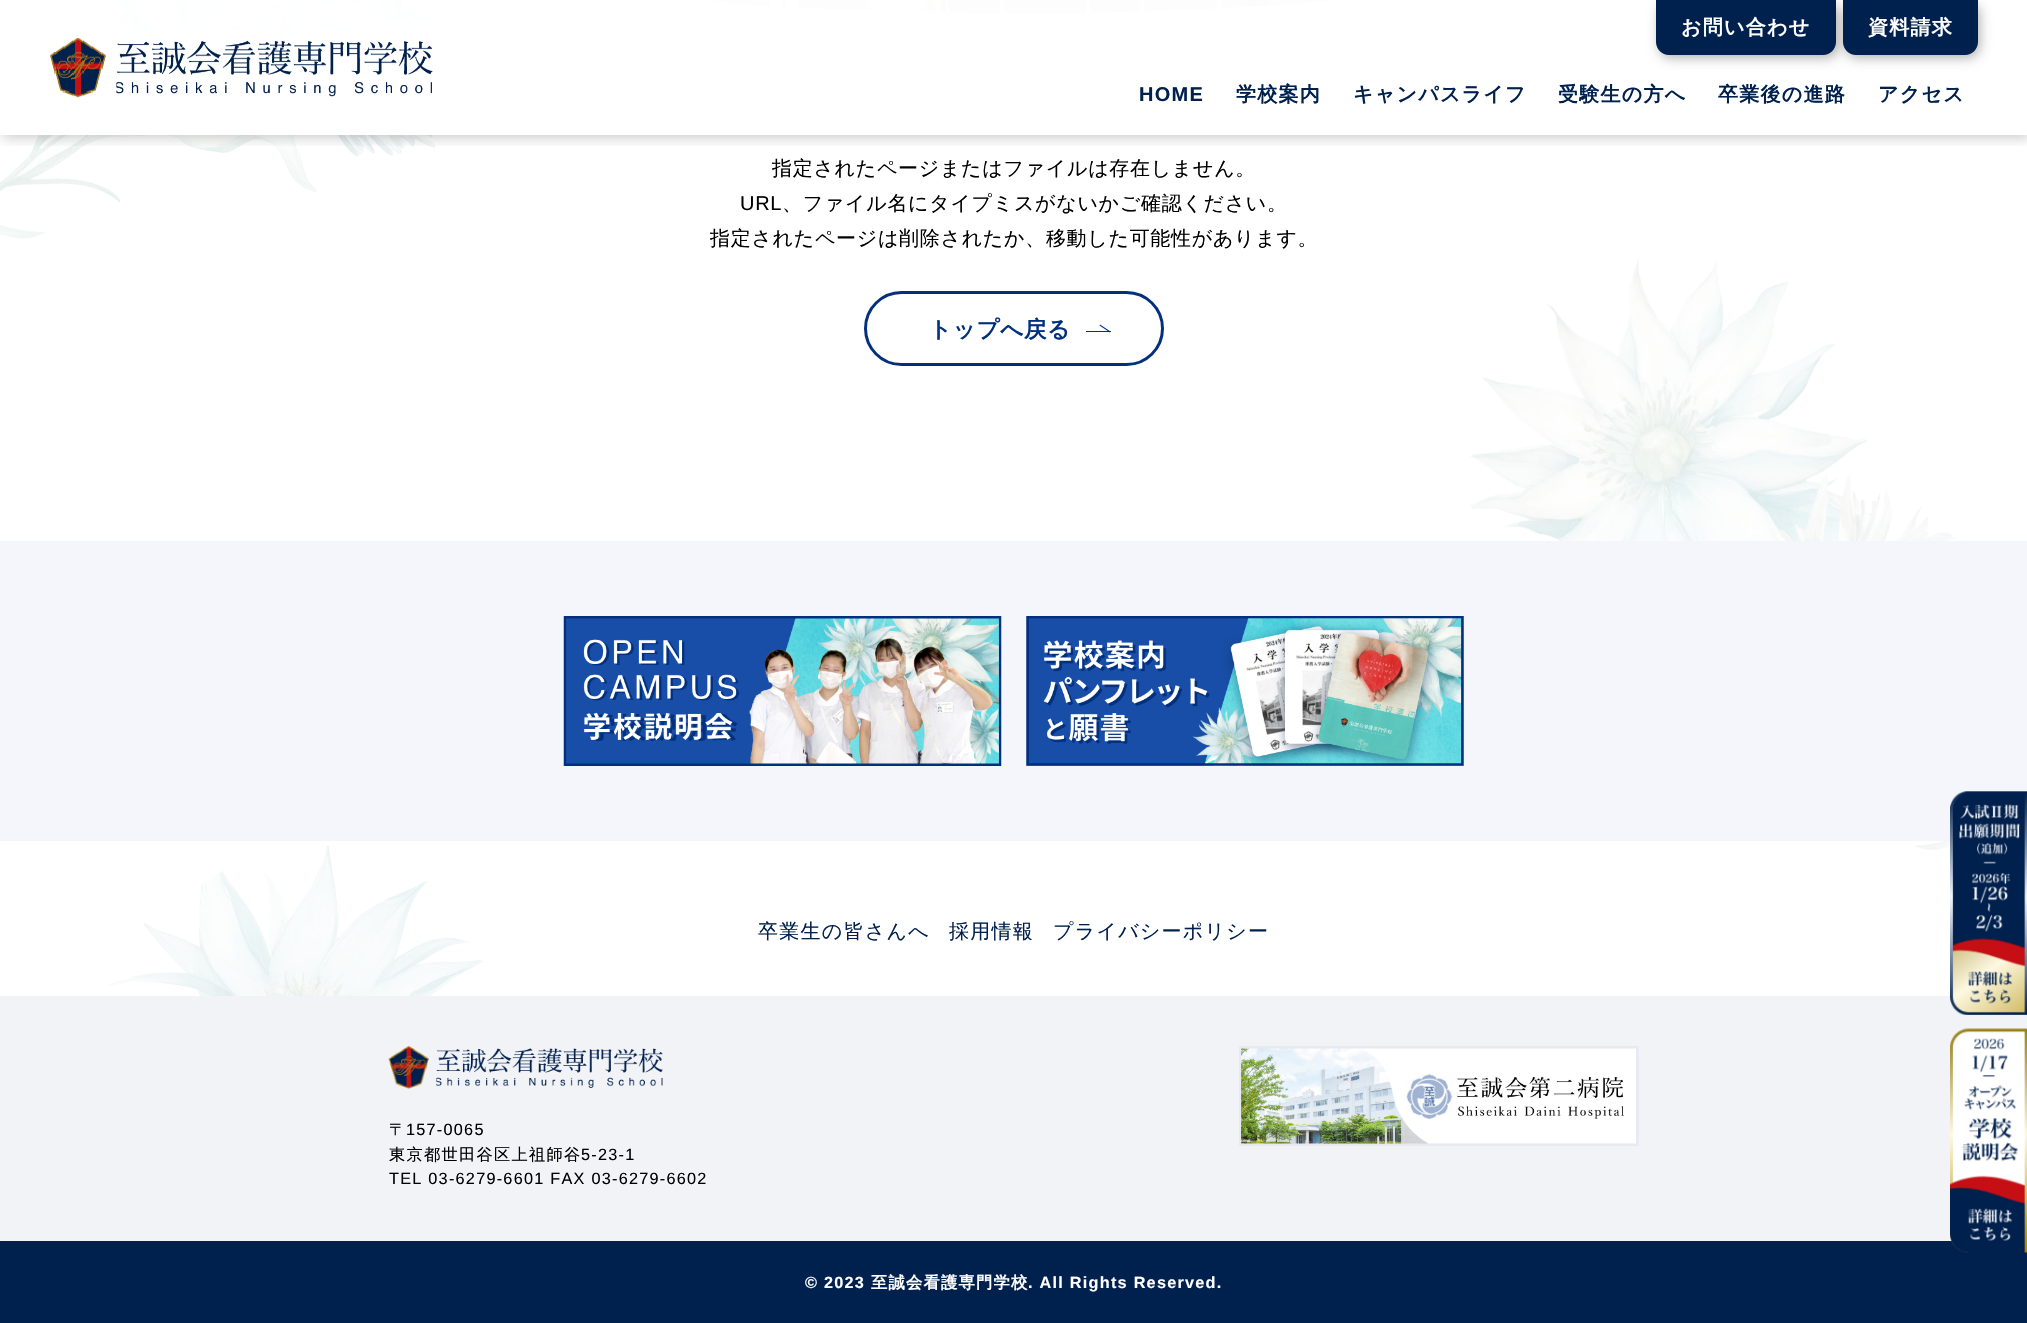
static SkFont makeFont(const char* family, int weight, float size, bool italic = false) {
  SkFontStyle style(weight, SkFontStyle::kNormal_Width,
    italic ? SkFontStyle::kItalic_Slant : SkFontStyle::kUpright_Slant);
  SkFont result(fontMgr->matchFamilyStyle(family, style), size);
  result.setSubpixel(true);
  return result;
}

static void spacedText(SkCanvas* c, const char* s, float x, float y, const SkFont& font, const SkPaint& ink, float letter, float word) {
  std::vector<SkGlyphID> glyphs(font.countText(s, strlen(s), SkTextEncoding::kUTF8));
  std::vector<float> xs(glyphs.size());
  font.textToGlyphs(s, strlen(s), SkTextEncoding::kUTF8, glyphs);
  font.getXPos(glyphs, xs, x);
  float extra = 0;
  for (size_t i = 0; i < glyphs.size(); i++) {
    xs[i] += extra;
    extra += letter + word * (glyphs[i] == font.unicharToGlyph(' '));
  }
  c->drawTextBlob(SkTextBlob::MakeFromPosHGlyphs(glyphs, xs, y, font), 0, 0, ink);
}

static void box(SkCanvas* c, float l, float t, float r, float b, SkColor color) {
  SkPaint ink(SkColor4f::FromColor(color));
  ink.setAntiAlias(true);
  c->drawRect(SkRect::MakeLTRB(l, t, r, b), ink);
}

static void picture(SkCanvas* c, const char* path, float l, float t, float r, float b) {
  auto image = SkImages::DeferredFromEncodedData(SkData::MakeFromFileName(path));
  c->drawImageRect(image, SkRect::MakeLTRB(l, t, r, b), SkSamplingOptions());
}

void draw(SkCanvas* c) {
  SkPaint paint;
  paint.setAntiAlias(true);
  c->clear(0xffffffff);
  picture(c, "img_01.png", 0, 0, 1957, 996);
  picture(c, "img_03.png", 219, 0, 1656, 52);
  picture(c, "img_02.png", 50, 0, 443, 78);
  c->save();
  c->clipRect(SkRect::MakeLTRB(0, 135, 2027, 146));
  paint.setColor(0x33000000);
  paint.setMaskFilter(SkMaskFilter::MakeBlur(kNormal_SkBlurStyle, 6));
  c->drawRect(SkRect::MakeLTRB(3, 3, 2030, 138), paint);
  paint.setMaskFilter(nullptr);
  c->restore();
  box(c, 0, 0, 1656, 135, 0xfaffffff);
  picture(c, "img_04.png", 50, 38, 433, 98);
  paint.setColor(0x4d000000);
  paint.setMaskFilter(SkMaskFilter::MakeBlur(kNormal_SkBlurStyle, 6));
  c->drawRoundRect(SkRect::MakeLTRB(1659, 3, 1839, 58), 13, 13, paint);
  paint.setMaskFilter(nullptr);
  paint.setColor(0xff00204d);
  c->drawPath(SkPathBuilder().moveTo(1656, 0).lineTo(1836, 0).lineTo(1836, 42).cubicTo(1836, 49, 1830, 55, 1823, 55).lineTo(1669, 55).cubicTo(1662, 55, 1656, 49, 1656, 42).close().detach(), paint);
  SkFont face1 = makeFont("WenQuanYi Zen Hei", 700, 20);
  paint.setColor(0xffffffff);
  spacedText(c, "お問い合わせ", 1681, 34, face1, paint, 1.25f, 0);
  paint.setColor(0x4d000000);
  paint.setMaskFilter(SkMaskFilter::MakeBlur(kNormal_SkBlurStyle, 6));
  c->drawRoundRect(SkRect::MakeLTRB(1845, 3, 1980, 58), 13, 13, paint);
  paint.setMaskFilter(nullptr);
  paint.setColor(0xff00204d);
  c->drawPath(SkPathBuilder().moveTo(1843, 0).lineTo(1978, 0).lineTo(1978, 42).cubicTo(1978, 49, 1972, 55, 1965, 55).lineTo(1856, 55).cubicTo(1849, 55, 1843, 49, 1843, 42).close().detach(), paint);
  paint.setColor(0xffffffff);
  spacedText(c, "資料請求", 1868, 34, face1, paint, 1.25f, 0);
  SkFont face2 = makeFont("Liberation Sans", 700, 20);
  paint.setColor(0xff00204d);
  spacedText(c, "HOME", 1139, 101, face2, paint, 1.25f, 0);
  spacedText(c, "学校案内", 1236, 101, face1, paint, 1.25f, 0);
  spacedText(c, "キャンパスライフ", 1353, 101, face1, paint, 1.25f, 0);
  spacedText(c, "受験生の方へ", 1558, 101, face1, paint, 1.25f, 0);
  spacedText(c, "卒業後の進路", 1718, 101, face1, paint, 1.25f, 0);
  spacedText(c, "アクセス", 1878, 101, face1, paint, 1.25f, 0);
  SkFont face3 = makeFont("WenQuanYi Zen Hei", 500, 20);
  paint.setColor(0xff000000);
  spacedText(c, "指定されたページまたはファイルは存在しません。", 772, 175, face3, paint, 0.7f, 0);
  SkFont face4 = makeFont("Liberation Sans", 400, 20);
  spacedText(c, "URL", 740, 210, face4, paint, 0.7f, 0);
  spacedText(c, "、ファイル名にタイプミスがないかご確認ください。", 782, 210, face3, paint, 0.7f, 0);
  spacedText(c, "指定されたページは削除されたか、移動した可能性があります。", 710, 245, face3, paint, 0.7f, 0);
  paint.setStyle(SkPaint::kStroke_Style);
  paint.setStrokeWidth(3);
  paint.setColor(0xff02307e);
  c->drawRoundRect(SkRect::MakeLTRB(865.5f, 292.5f, 1162.5f, 364.5f), 36, 36, paint);
  SkFont face5 = makeFont("WenQuanYi Zen Hei", 700, 22.5f);
  paint.setStyle(SkPaint::kFill_Style);
  paint.setColor(0xff01307e);
  spacedText(c, "トップへ戻る", 929, 337, face5, paint, 0.7f, 0);
  box(c, 1086, 331, 1111, 332, 0xff02307e);
  paint.setColor(0xff02307e);
  c->drawPath(SkPathBuilder().moveTo(1100, 324.5f).lineTo(1110.5f, 331.5f).lineTo(1110, 332.5f).lineTo(1099.5f, 325.5f).close().detach(), paint);
  box(c, 0, 541, 2027, 841, 0xfff4f6fc);
  picture(c, "img_05.png", 563, 616, 1002, 766);
  picture(c, "img_06.png", 1026, 616, 1464, 766);
  paint.setColor(0xff00204d);
  spacedText(c, "卒業生の皆さんへ", 758, 938, face3, paint, 1.25f, 0);
  spacedText(c, "採用情報", 949, 938, face3, paint, 1.25f, 0);
  spacedText(c, "プライバシーポリシー", 1053, 938, face3, paint, 1.25f, 0);
  box(c, 0, 996, 2027, 1241, 0xfff1f3f7);
  picture(c, "img_07.png", 1950, 791, 2027, 1015);
  picture(c, "img_08.png", 1239, 1046, 1639, 1146);
  picture(c, "img_09.png", 388, 1046, 663, 1089);
  SkFont face6 = makeFont("WenQuanYi Zen Hei", 500, 16.25f);
  paint.setColor(0xff000000);
  spacedText(c, "〒", 389, 1135, face6, paint, 1.25f, 0);
  SkFont face7 = makeFont("Liberation Sans", 400, 16.25f);
  spacedText(c, "157-0065", 406, 1135, face7, paint, 1.25f, 0);
  spacedText(c, "東京都世田谷区上祖師谷", 389, 1160, face6, paint, 1.25f, 0);
  spacedText(c, "5-23-1", 581, 1160, face7, paint, 1.25f, 0);
  spacedText(c, "TEL 03-6279-6601 FAX 03-6279-6602", 389, 1184, face7, paint, 1.25f, 0);
  box(c, 0, 1241, 2027, 1323, 0xff00204d);
  SkFont face8 = makeFont("Liberation Sans", 700, 16.25f);
  paint.setColor(0xffffffff);
  spacedText(c, "© 2023", 805, 1288, face8, paint, 1.25f, 0);
  SkFont face9 = makeFont("WenQuanYi Zen Hei", 700, 16.25f);
  spacedText(c, "至誠会看護専門学校", 871, 1288, face9, paint, 1.25f, 0);
  spacedText(c, ". All Rights Reserved.", 1028, 1288, face8, paint, 1.25f, 0);
  picture(c, "img_10.png", 1950, 1028, 2027, 1253);
}
